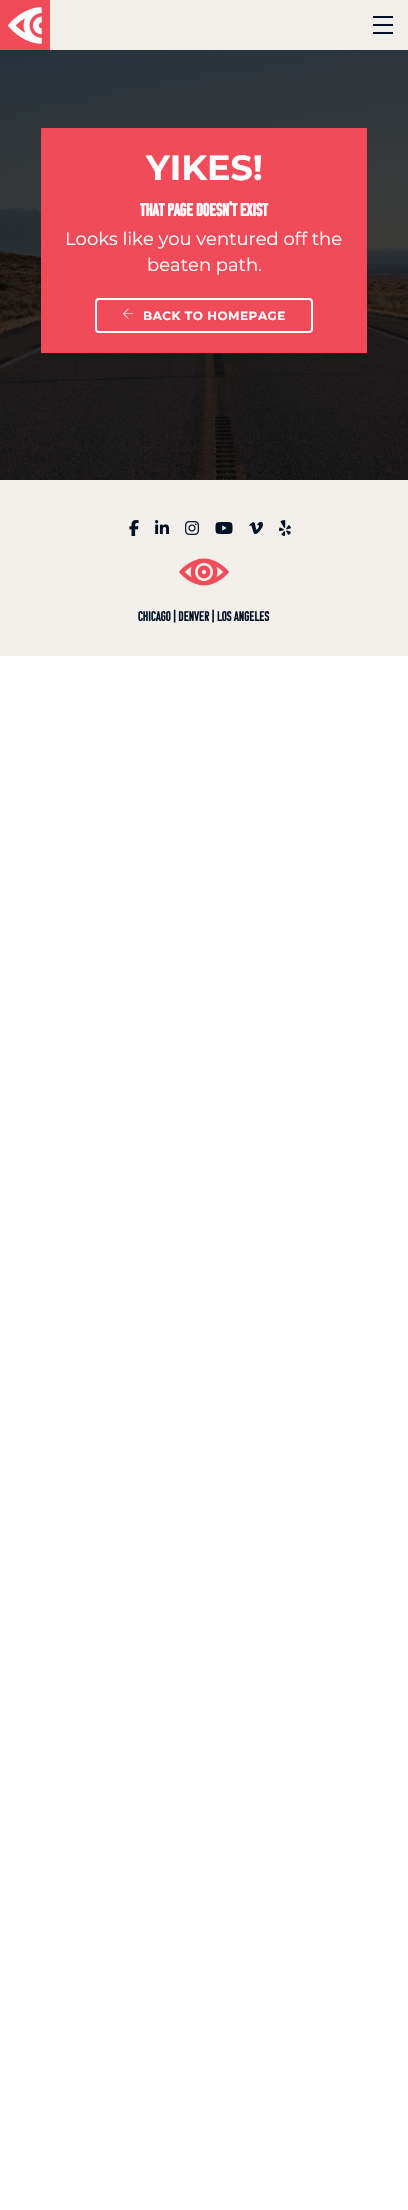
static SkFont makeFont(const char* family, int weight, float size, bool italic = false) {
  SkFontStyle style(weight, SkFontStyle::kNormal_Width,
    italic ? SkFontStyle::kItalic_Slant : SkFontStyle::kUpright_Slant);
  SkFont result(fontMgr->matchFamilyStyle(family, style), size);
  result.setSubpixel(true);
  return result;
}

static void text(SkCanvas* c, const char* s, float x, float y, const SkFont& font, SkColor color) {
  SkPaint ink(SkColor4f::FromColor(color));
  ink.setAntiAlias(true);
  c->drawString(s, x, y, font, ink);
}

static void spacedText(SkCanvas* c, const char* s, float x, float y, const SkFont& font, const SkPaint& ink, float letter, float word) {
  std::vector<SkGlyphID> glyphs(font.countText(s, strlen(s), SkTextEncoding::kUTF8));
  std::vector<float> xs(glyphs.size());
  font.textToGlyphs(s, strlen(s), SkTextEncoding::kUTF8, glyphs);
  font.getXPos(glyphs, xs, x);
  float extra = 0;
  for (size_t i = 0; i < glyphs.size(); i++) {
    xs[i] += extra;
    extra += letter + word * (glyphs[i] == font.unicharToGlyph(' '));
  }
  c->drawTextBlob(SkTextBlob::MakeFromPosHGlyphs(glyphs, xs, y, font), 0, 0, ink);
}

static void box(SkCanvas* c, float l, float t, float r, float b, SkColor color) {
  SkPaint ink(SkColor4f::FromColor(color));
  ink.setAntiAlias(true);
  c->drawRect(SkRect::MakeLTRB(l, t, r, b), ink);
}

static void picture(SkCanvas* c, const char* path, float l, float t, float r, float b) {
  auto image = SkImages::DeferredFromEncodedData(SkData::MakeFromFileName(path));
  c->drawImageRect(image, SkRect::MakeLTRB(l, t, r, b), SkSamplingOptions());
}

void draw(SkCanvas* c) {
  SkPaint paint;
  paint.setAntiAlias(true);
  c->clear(0xffffffff);
  box(c, 50, 0, 408, 50, 0xfff2efea);
  picture(c, "img_01.png", 0, 0, 50, 50);
  box(c, 373, 16, 393, 18, 0xff001126);
  box(c, 373, 24, 393, 26, 0xff001126);
  box(c, 373, 32, 393, 34, 0xff001126);
  picture(c, "img_02.png", 0, 50, 408, 480);
  box(c, 41, 128, 367, 353, 0xfff14a58);
  SkFont face1 = makeFont("Montserrat", 700, 35);
  text(c, "YIKES!", 146, 180, face1, 0xffffffff);
  SkFont face2 = makeFont("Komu", 700, 18);
  text(c, "THAT PAGE DOESN'T EXIST", 140, 216, face2, 0xffffffff);
  SkFont face3 = makeFont("Montserrat", 400, 18);
  text(c, "Looks like you ventured off the", 65, 245, face3, 0xffffffff);
  text(c, "beaten path.", 147, 271, face3, 0xffffffff);
  paint.setStyle(SkPaint::kStroke_Style);
  paint.setStrokeWidth(2);
  paint.setColor(0xffffffff);
  c->drawRoundRect(SkRect::MakeLTRB(96, 299, 312, 332), 3, 3, paint);
  picture(c, "img_03.png", 123, 308, 134, 319);
  SkFont face4 = makeFont("Montserrat", 700, 12);
  paint.setStyle(SkPaint::kFill_Style);
  spacedText(c, "BACK TO HOMEPAGE", 143, 320, face4, paint, 0.5f, 0);
  box(c, 0, 480, 408, 656, 0xfff2efea);
  picture(c, "img_04.png", 129, 520, 139, 536);
  picture(c, "img_05.png", 155, 520, 169, 534);
  picture(c, "img_06.png", 185, 521, 199, 535);
  picture(c, "img_07.png", 215, 522, 233, 534);
  picture(c, "img_08.png", 249, 522, 263, 535);
  picture(c, "img_09.png", 279, 520, 291, 536);
  picture(c, "img_10.png", 179, 558, 229, 586);
  SkFont face5 = makeFont("Komu", 400, 14);
  text(c, "CHICAGO | DENVER | LOS ANGELES", 138, 621, face5, 0xff001126);
}
